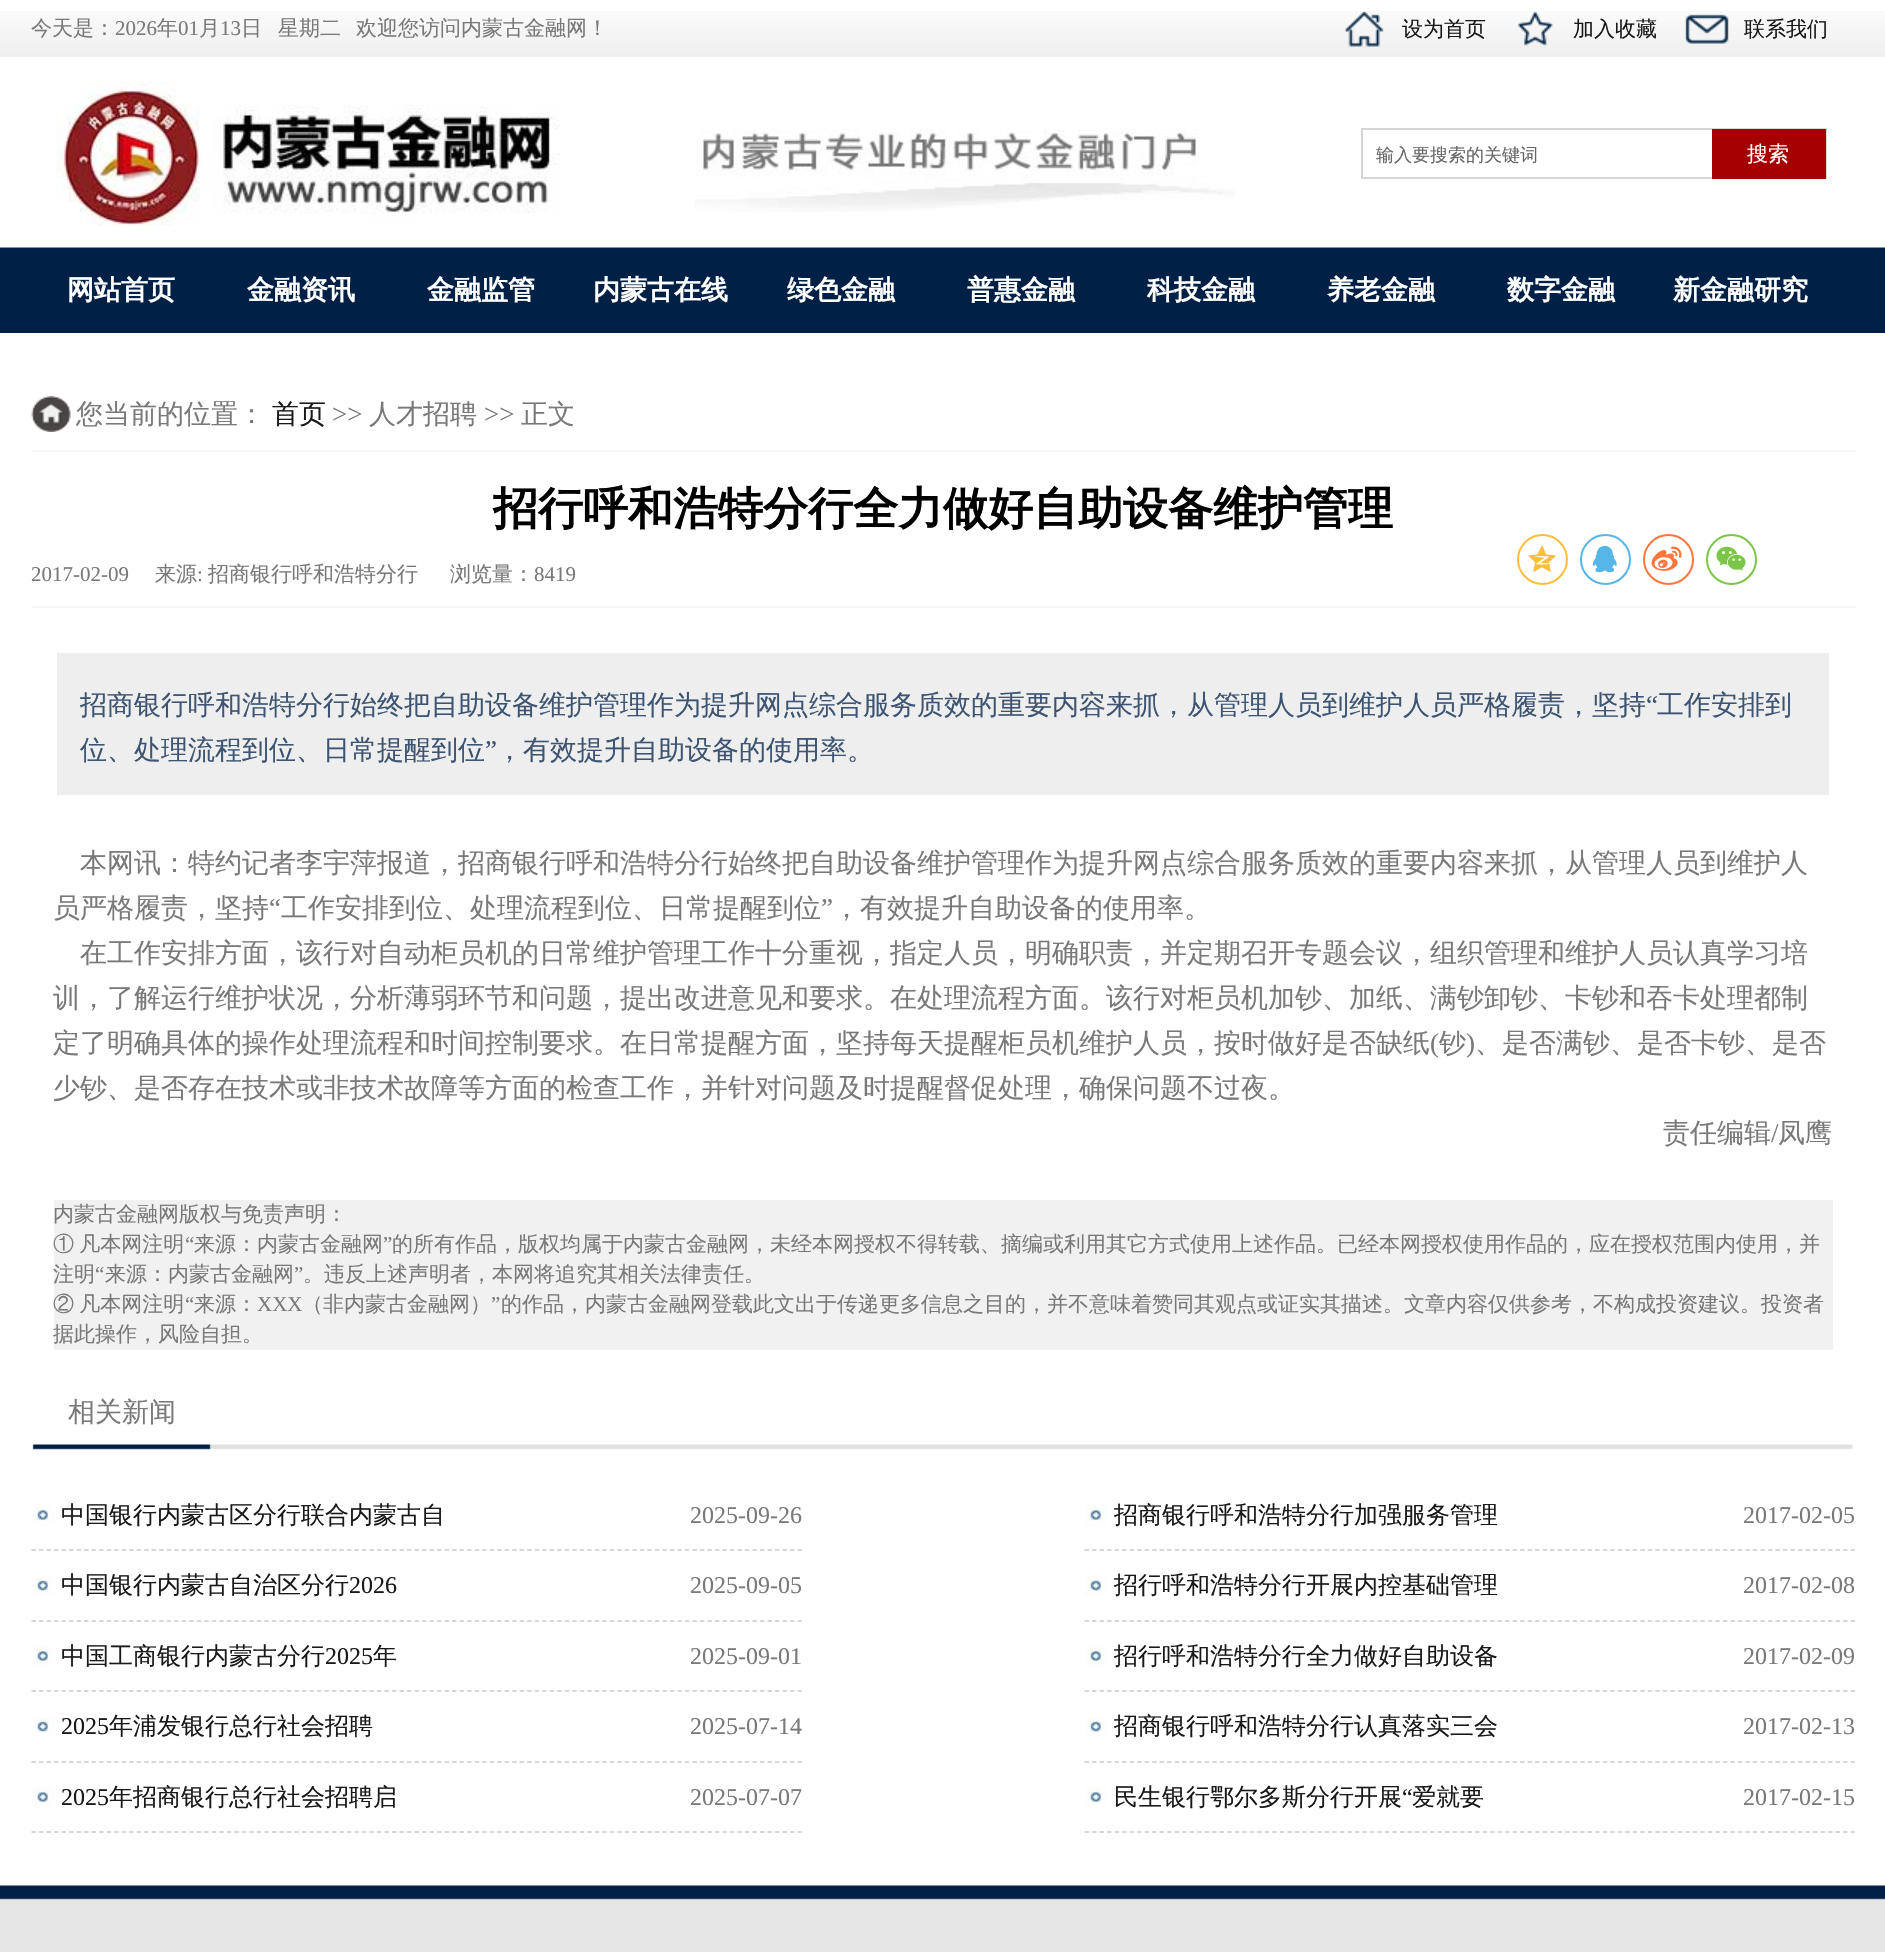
static SkFont makeFont(const char* family, int weight, float size, bool italic = false) {
  SkFontStyle style(weight, SkFontStyle::kNormal_Width,
    italic ? SkFontStyle::kItalic_Slant : SkFontStyle::kUpright_Slant);
  SkFont result(fontMgr->matchFamilyStyle(family, style), size);
  result.setSubpixel(true);
  return result;
}

static void text(SkCanvas* c, const char* s, float x, float y, const SkFont& font, SkColor color) {
  SkPaint ink(SkColor4f::FromColor(color));
  ink.setAntiAlias(true);
  c->drawString(s, x, y, font, ink);
}

static void spacedText(SkCanvas* c, const char* s, float x, float y, const SkFont& font, const SkPaint& ink, float letter, float word) {
  std::vector<SkGlyphID> glyphs(font.countText(s, strlen(s), SkTextEncoding::kUTF8));
  std::vector<float> xs(glyphs.size());
  font.textToGlyphs(s, strlen(s), SkTextEncoding::kUTF8, glyphs);
  font.getXPos(glyphs, xs, x);
  float extra = 0;
  for (size_t i = 0; i < glyphs.size(); i++) {
    xs[i] += extra;
    extra += letter + word * (glyphs[i] == font.unicharToGlyph(' '));
  }
  c->drawTextBlob(SkTextBlob::MakeFromPosHGlyphs(glyphs, xs, y, font), 0, 0, ink);
}

static void box(SkCanvas* c, float l, float t, float r, float b, SkColor color) {
  SkPaint ink(SkColor4f::FromColor(color));
  ink.setAntiAlias(true);
  c->drawRect(SkRect::MakeLTRB(l, t, r, b), ink);
}

static void picture(SkCanvas* c, const char* path, float l, float t, float r, float b) {
  auto image = SkImages::DeferredFromEncodedData(SkData::MakeFromFileName(path));
  c->drawImageRect(image, SkRect::MakeLTRB(l, t, r, b), SkSamplingOptions());
}

void draw(SkCanvas* c) {
  SkPaint paint;
  paint.setAntiAlias(true);
  c->clear(0xffffffff);
  picture(c, "img_01.png", 0, 11, 1885, 333);
  SkFont face1 = makeFont("WenQuanYi Zen Hei", 500, 21);
  text(c, "今天是：", 31, 35, face1, 0xff797979);
  SkFont face2 = makeFont("Liberation Serif", 400, 21);
  text(c, "2026", 115, 35, face2, 0xff797979);
  text(c, "年", 157, 35, face1, 0xff797979);
  text(c, "01", 178, 35, face2, 0xff797979);
  text(c, "月", 199, 35, face1, 0xff797979);
  text(c, "13", 220, 35, face2, 0xff797979);
  text(c, "日", 241, 35, face1, 0xff797979);
  text(c, "星期二", 278, 35, face1, 0xff797979);
  text(c, "欢迎您访问内蒙古金融网！", 356, 35, face1, 0xff797979);
  picture(c, "img_02.png", 1345, 11, 1384, 47);
  text(c, "设为首页", 1402, 36, face1, 0xff191919);
  picture(c, "img_03.png", 1517, 11, 1553, 46);
  text(c, "加入收藏", 1573, 36, face1, 0xff191919);
  picture(c, "img_04.png", 1685, 14, 1729, 44);
  text(c, "联系我们", 1744, 36, face1, 0xff191919);
  picture(c, "img_05.png", 694, 129, 1235, 212);
  picture(c, "img_06.png", 56, 81, 560, 226);
  paint.setStyle(SkPaint::kStroke_Style);
  paint.setStrokeWidth(2);
  paint.setColor(0xffd6d6d6);
  c->drawRect(SkRect::MakeLTRB(1362, 129, 1826, 178), paint);
  SkFont face3 = makeFont("WenQuanYi Zen Hei", 500, 18);
  text(c, "输入要搜索的关键词", 1376, 161, face3, 0xff666666);
  box(c, 1712, 129, 1826, 179, 0xffa50100);
  text(c, "搜索", 1747, 161, face1, 0xffffffff);
  SkFont face4 = makeFont("WenQuanYi Zen Hei", 700, 27);
  text(c, "网站首页", 67, 299, face4, 0xffffffff);
  text(c, "金融资讯", 247, 299, face4, 0xffffffff);
  text(c, "金融监管", 427, 299, face4, 0xffffffff);
  text(c, "内蒙古在线", 593, 299, face4, 0xffffffff);
  text(c, "绿色金融", 787, 299, face4, 0xffffffff);
  text(c, "普惠金融", 967, 299, face4, 0xffffffff);
  text(c, "科技金融", 1147, 299, face4, 0xffffffff);
  text(c, "养老金融", 1327, 299, face4, 0xffffffff);
  text(c, "数字金融", 1507, 299, face4, 0xffffffff);
  text(c, "新金融研究", 1673, 299, face4, 0xffffffff);
  picture(c, "img_07.png", 31, 396, 71, 432);
  box(c, 32, 450, 1856, 452, 0xfff7f5f6);
  SkFont face5 = makeFont("WenQuanYi Zen Hei", 500, 27);
  text(c, "您当前的位置：", 76, 423, face5, 0xff797979);
  text(c, "首页", 272, 423, face5, 0xff191919);
  SkFont face6 = makeFont("Liberation Serif", 400, 27);
  text(c, ">>", 332, 423, face6, 0xff797979);
  text(c, "人才招聘", 369, 423, face5, 0xff797979);
  text(c, ">>", 484, 423, face6, 0xff797979);
  text(c, "正文", 521, 423, face5, 0xff797979);
  box(c, 32, 606, 1856, 608, 0xfff7f5f6);
  SkFont face7 = makeFont("WenQuanYi Zen Hei", 700, 45);
  text(c, "招行呼和浩特分行全力做好自助设备维护管理", 493, 524, face7, 0xff000000);
  text(c, "2017-02-09", 31, 581, face2, 0xff797979);
  text(c, "来源", 155, 581, face1, 0xff797979);
  text(c, ":", 197, 581, face2, 0xff797979);
  text(c, "招商银行呼和浩特分行", 208, 581, face1, 0xff797979);
  text(c, "浏览量：", 450, 581, face1, 0xff797979);
  text(c, "8419", 534, 581, face2, 0xff797979);
  paint.setColor(0xfffdbe3d);
  c->drawCircle(1542.5f, 559.5f, 24.5f, paint);
  picture(c, "img_08.png", 1528, 545, 1556, 572);
  paint.setColor(0xff56b6e7);
  c->drawCircle(1605.5f, 559.5f, 24.5f, paint);
  picture(c, "img_09.png", 1592, 545, 1617, 573);
  paint.setColor(0xffff763b);
  c->drawCircle(1668.5f, 559.5f, 24.5f, paint);
  picture(c, "img_10.png", 1651, 546, 1682, 571);
  paint.setColor(0xff7bc549);
  c->drawCircle(1731.5f, 559.5f, 24.5f, paint);
  picture(c, "img_11.png", 1716, 546, 1746, 571);
  box(c, 57, 653, 1829, 795, 0xffeeeeee);
  text(c, "招商银行呼和浩特分行始终把自助设备维护管理作为提升网点综合服务质效的重要内容来抓，从管理人员到维护人员严格履责，坚持", 80, 714, face5, 0xff3d5472);
  text(c, "“", 1646, 714, face6, 0xff3d5472);
  text(c, "工作安排到", 1657, 714, face5, 0xff3d5472);
  text(c, "位、处理流程到位、日常提醒到位", 80, 759, face5, 0xff3d5472);
  text(c, "”", 485, 759, face6, 0xff3d5472);
  text(c, "，有效提升自助设备的使用率。", 496, 759, face5, 0xff3d5472);
  text(c, "本网讯：特约记者李宇萍报道，招商银行呼和浩特分行始终把自助设备维护管理作为提升网点综合服务质效的重要内容来抓，从管理人员到维护人", 80, 872, face5, 0xff797979);
  text(c, "员严格履责，坚持", 53, 917, face5, 0xff797979);
  text(c, "“", 269, 917, face6, 0xff797979);
  text(c, "工作安排到位、处理流程到位、日常提醒到位", 281, 917, face5, 0xff797979);
  text(c, "”", 821, 917, face6, 0xff797979);
  text(c, "，有效提升自助设备的使用率。", 833, 917, face5, 0xff797979);
  text(c, "在工作安排方面，该行对自动柜员机的日常维护管理工作十分重视，指定人员，明确职责，并定期召开专题会议，组织管理和维护人员认真学习培", 80, 962, face5, 0xff797979);
  text(c, "训，了解运行维护状况，分析薄弱环节和问题，提出改进意见和要求。在处理流程方面。该行对柜员机加钞、加纸、满钞卸钞、卡钞和吞卡处理都制", 53, 1007, face5, 0xff797979);
  text(c, "定了明确具体的操作处理流程和时间控制要求。在日常提醒方面，坚持每天提醒柜员机维护人员，按时做好是否缺纸", 53, 1052, face5, 0xff797979);
  text(c, "(", 1430, 1052, face6, 0xff797979);
  text(c, "钞", 1439, 1052, face5, 0xff797979);
  text(c, ")", 1466, 1052, face6, 0xff797979);
  text(c, "、是否满钞、是否卡钞、是否", 1475, 1052, face5, 0xff797979);
  text(c, "少钞、是否存在技术或非技术故障等方面的检查工作，并针对问题及时提醒督促处理，确保问题不过夜。", 53, 1097, face5, 0xff797979);
  text(c, "责任编辑", 1663, 1142, face5, 0xff797979);
  text(c, "/", 1771, 1142, face6, 0xff797979);
  text(c, "凤鹰", 1778, 1142, face5, 0xff797979);
  box(c, 54, 1200, 1833, 1350, 0xfff1f1f1);
  text(c, "内蒙古金融网版权与免责声明：", 53, 1221, face1, 0xff797979);
  paint.setStyle(SkPaint::kFill_Style);
  paint.setColor(0xff797979);
  spacedText(c, "① 凡本网注明", 53, 1251, face1, paint, 0, -1);
  text(c, "“", 185, 1251, face2, 0xff797979);
  text(c, "来源：内蒙古金融网", 194, 1251, face1, 0xff797979);
  text(c, "”", 383, 1251, face2, 0xff797979);
  text(c, "的所有作品，版权均属于内蒙古金融网，未经本网授权不得转载、摘编或利用其它方式使用上述作品。已经本网授权使用作品的，应在授权范围内使用，并", 392, 1251, face1, 0xff797979);
  text(c, "注明", 53, 1281, face1, 0xff797979);
  text(c, "“", 95, 1281, face2, 0xff797979);
  text(c, "来源：内蒙古金融网", 105, 1281, face1, 0xff797979);
  text(c, "”", 294, 1281, face2, 0xff797979);
  text(c, "。违反上述声明者，本网将追究其相关法律责任。", 303, 1281, face1, 0xff797979);
  spacedText(c, "② 凡本网注明", 53, 1311, face1, paint, 0, -1);
  text(c, "“", 185, 1311, face2, 0xff797979);
  text(c, "来源：", 194, 1311, face1, 0xff797979);
  text(c, "XXX", 257, 1311, face2, 0xff797979);
  text(c, "（非内蒙古金融网）", 302, 1311, face1, 0xff797979);
  text(c, "”", 491, 1311, face2, 0xff797979);
  text(c, "的作品，内蒙古金融网登载此文出于传递更多信息之目的，并不意味着赞同其观点或证实其描述。文章内容仅供参考，不构成投资建议。投资者", 501, 1311, face1, 0xff797979);
  text(c, "据此操作，风险自担。", 53, 1341, face1, 0xff797979);
  picture(c, "img_12.png", 32, 1444, 1853, 1450);
  text(c, "相关新闻", 68, 1421, face5, 0xff797979);
  picture(c, "img_13.png", 32, 1504, 54, 1526);
  paint.setStyle(SkPaint::kStroke_Style);
  paint.setStrokeWidth(1.5f);
  paint.setColor(0xffcccccc);
  paint.setPathEffect(SkDashPathEffect::Make({{4.5f, 3.01f}}, 0));
  c->drawPath(SkPathBuilder().moveTo(31.5f, 1550).lineTo(802.5f, 1550).detach(), paint);
  paint.setPathEffect(nullptr);
  SkFont face8 = makeFont("WenQuanYi Zen Hei", 500, 24);
  text(c, "中国银行内蒙古区分行联合内蒙古自", 61, 1523, face8, 0xff191919);
  SkFont face9 = makeFont("Liberation Serif", 400, 24);
  text(c, "2025-09-26", 690, 1523, face9, 0xff797979);
  picture(c, "img_14.png", 32, 1575, 54, 1596);
  paint.setPathEffect(SkDashPathEffect::Make({{4.5f, 3.01f}}, 0));
  c->drawPath(SkPathBuilder().moveTo(31.5f, 1621).lineTo(802.5f, 1621).detach(), paint);
  paint.setPathEffect(nullptr);
  text(c, "中国银行内蒙古自治区分行", 61, 1593, face8, 0xff191919);
  text(c, "2026", 349, 1593, face9, 0xff191919);
  text(c, "2025-09-05", 690, 1593, face9, 0xff797979);
  picture(c, "img_13.png", 32, 1645, 54, 1667);
  paint.setPathEffect(SkDashPathEffect::Make({{4.5f, 3.01f}}, 0));
  c->drawPath(SkPathBuilder().moveTo(31.5f, 1691).lineTo(802.5f, 1691).detach(), paint);
  paint.setPathEffect(nullptr);
  text(c, "中国工商银行内蒙古分行", 61, 1664, face8, 0xff191919);
  text(c, "2025", 325, 1664, face9, 0xff191919);
  text(c, "年", 373, 1664, face8, 0xff191919);
  text(c, "2025-09-01", 690, 1664, face9, 0xff797979);
  picture(c, "img_14.png", 32, 1716, 54, 1737);
  paint.setPathEffect(SkDashPathEffect::Make({{4.5f, 3.01f}}, 0));
  c->drawPath(SkPathBuilder().moveTo(31.5f, 1762).lineTo(802.5f, 1762).detach(), paint);
  paint.setPathEffect(nullptr);
  text(c, "2025", 61, 1734, face9, 0xff191919);
  text(c, "年浦发银行总行社会招聘", 109, 1734, face8, 0xff191919);
  text(c, "2025-07-14", 690, 1734, face9, 0xff797979);
  picture(c, "img_13.png", 32, 1786, 54, 1808);
  paint.setPathEffect(SkDashPathEffect::Make({{4.5f, 3.01f}}, 0));
  c->drawPath(SkPathBuilder().moveTo(31.5f, 1832).lineTo(802.5f, 1832).detach(), paint);
  paint.setPathEffect(nullptr);
  text(c, "2025", 61, 1805, face9, 0xff191919);
  text(c, "年招商银行总行社会招聘启", 109, 1805, face8, 0xff191919);
  text(c, "2025-07-07", 690, 1805, face9, 0xff797979);
  picture(c, "img_13.png", 1085, 1504, 1107, 1526);
  paint.setPathEffect(SkDashPathEffect::Make({{4.5f, 3.01f}}, 0));
  c->drawPath(SkPathBuilder().moveTo(1084.5f, 1550).lineTo(1855.5f, 1550).detach(), paint);
  paint.setPathEffect(nullptr);
  text(c, "招商银行呼和浩特分行加强服务管理", 1114, 1523, face8, 0xff191919);
  text(c, "2017-02-05", 1743, 1523, face9, 0xff797979);
  picture(c, "img_14.png", 1085, 1575, 1107, 1596);
  paint.setPathEffect(SkDashPathEffect::Make({{4.5f, 3.01f}}, 0));
  c->drawPath(SkPathBuilder().moveTo(1084.5f, 1621).lineTo(1855.5f, 1621).detach(), paint);
  paint.setPathEffect(nullptr);
  text(c, "招行呼和浩特分行开展内控基础管理", 1114, 1593, face8, 0xff191919);
  text(c, "2017-02-08", 1743, 1593, face9, 0xff797979);
  picture(c, "img_13.png", 1085, 1645, 1107, 1667);
  paint.setPathEffect(SkDashPathEffect::Make({{4.5f, 3.01f}}, 0));
  c->drawPath(SkPathBuilder().moveTo(1084.5f, 1691).lineTo(1855.5f, 1691).detach(), paint);
  paint.setPathEffect(nullptr);
  text(c, "招行呼和浩特分行全力做好自助设备", 1114, 1664, face8, 0xff191919);
  text(c, "2017-02-09", 1743, 1664, face9, 0xff797979);
  picture(c, "img_14.png", 1085, 1716, 1107, 1737);
  paint.setPathEffect(SkDashPathEffect::Make({{4.5f, 3.01f}}, 0));
  c->drawPath(SkPathBuilder().moveTo(1084.5f, 1762).lineTo(1855.5f, 1762).detach(), paint);
  paint.setPathEffect(nullptr);
  text(c, "招商银行呼和浩特分行认真落实三会", 1114, 1734, face8, 0xff191919);
  text(c, "2017-02-13", 1743, 1734, face9, 0xff797979);
  picture(c, "img_13.png", 1085, 1786, 1107, 1808);
  paint.setPathEffect(SkDashPathEffect::Make({{4.5f, 3.01f}}, 0));
  c->drawPath(SkPathBuilder().moveTo(1084.5f, 1832).lineTo(1855.5f, 1832).detach(), paint);
  paint.setPathEffect(nullptr);
  text(c, "民生银行鄂尔多斯分行开展", 1114, 1805, face8, 0xff191919);
  text(c, "“", 1402, 1805, face9, 0xff191919);
  text(c, "爱就要", 1412, 1805, face8, 0xff191919);
  text(c, "2017-02-15", 1743, 1805, face9, 0xff797979);
  picture(c, "img_15.png", 0, 1885, 1885, 1952);
}
